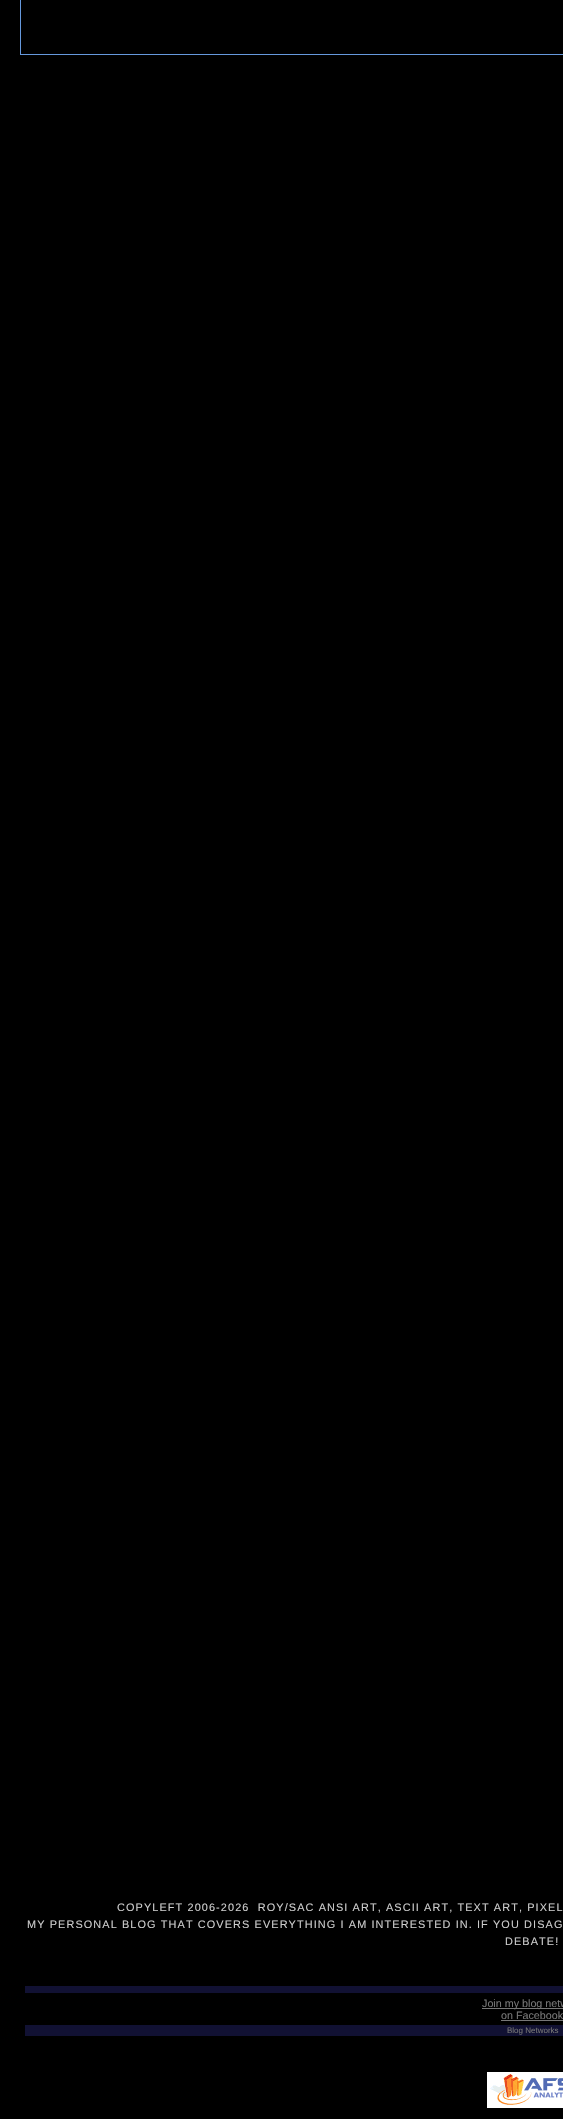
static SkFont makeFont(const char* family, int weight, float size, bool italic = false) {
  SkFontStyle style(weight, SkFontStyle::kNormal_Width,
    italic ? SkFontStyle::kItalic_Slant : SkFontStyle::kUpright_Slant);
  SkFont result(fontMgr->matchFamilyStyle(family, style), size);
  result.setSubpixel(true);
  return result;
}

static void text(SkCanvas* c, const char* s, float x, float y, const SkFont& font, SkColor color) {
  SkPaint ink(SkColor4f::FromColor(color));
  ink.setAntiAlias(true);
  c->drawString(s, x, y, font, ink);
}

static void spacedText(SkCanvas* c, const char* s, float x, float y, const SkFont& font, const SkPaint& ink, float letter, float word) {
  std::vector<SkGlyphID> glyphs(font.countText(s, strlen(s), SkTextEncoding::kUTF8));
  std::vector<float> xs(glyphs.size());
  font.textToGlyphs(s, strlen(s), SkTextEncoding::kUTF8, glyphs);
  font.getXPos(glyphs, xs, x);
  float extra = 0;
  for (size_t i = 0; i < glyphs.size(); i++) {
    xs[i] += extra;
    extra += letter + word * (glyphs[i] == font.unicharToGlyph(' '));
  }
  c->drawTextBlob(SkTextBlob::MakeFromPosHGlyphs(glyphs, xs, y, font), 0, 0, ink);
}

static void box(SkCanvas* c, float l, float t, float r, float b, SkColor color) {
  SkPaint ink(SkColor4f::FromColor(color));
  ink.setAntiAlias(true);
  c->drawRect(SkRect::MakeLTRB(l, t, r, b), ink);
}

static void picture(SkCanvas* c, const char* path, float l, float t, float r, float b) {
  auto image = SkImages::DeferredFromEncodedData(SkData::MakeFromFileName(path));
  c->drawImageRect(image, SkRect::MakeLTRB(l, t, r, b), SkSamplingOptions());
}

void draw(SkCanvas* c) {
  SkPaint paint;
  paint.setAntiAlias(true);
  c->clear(0xff000000);
  paint.setStyle(SkPaint::kStroke_Style);
  paint.setStrokeWidth(1);
  paint.setColor(0xff6699dd);
  c->drawRect(SkRect::MakeLTRB(20.5f, -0.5f, 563.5f, 54.5f), paint);
  SkFont face1 = makeFont("Liberation Sans", 400, 10.9f);
  paint.setStyle(SkPaint::kFill_Style);
  paint.setColor(0xffcccccc);
  spacedText(c, "COPYLEFT 2006-2026  ROY/SAC ANSI ART, ASCII ART, TEXT ART, PIXEL", 117, 1911, face1, paint, 1.1f, 0);
  spacedText(c, "MY PERSONAL BLOG THAT COVERS EVERYTHING I AM INTERESTED IN. IF YOU DISAG", 27, 1928, face1, paint, 1.1f, 0);
  spacedText(c, "DEBATE!", 505, 1945, face1, paint, 1.1f, 0);
  box(c, 25, 1986, 563, 2036, 0xff111133);
  box(c, 25, 1993, 563, 2025, 0xff000000);
  box(c, 482, 2008, 563, 2009, 0xff777777);
  SkFont face2 = makeFont("Liberation Sans", 400, 10.75f);
  text(c, "Join my blog netw", 482, 2007, face2, 0xff777777);
  text(c, "on Facebook", 501, 2019, face2, 0xff777777);
  box(c, 501, 2020, 563, 2021, 0xff777777);
  SkFont face3 = makeFont("Liberation Sans", 400, 8);
  text(c, "Blog Networks", 507, 2033, face3, 0xff777777);
  picture(c, "img_01.png", 487, 2072, 563, 2108);
}
